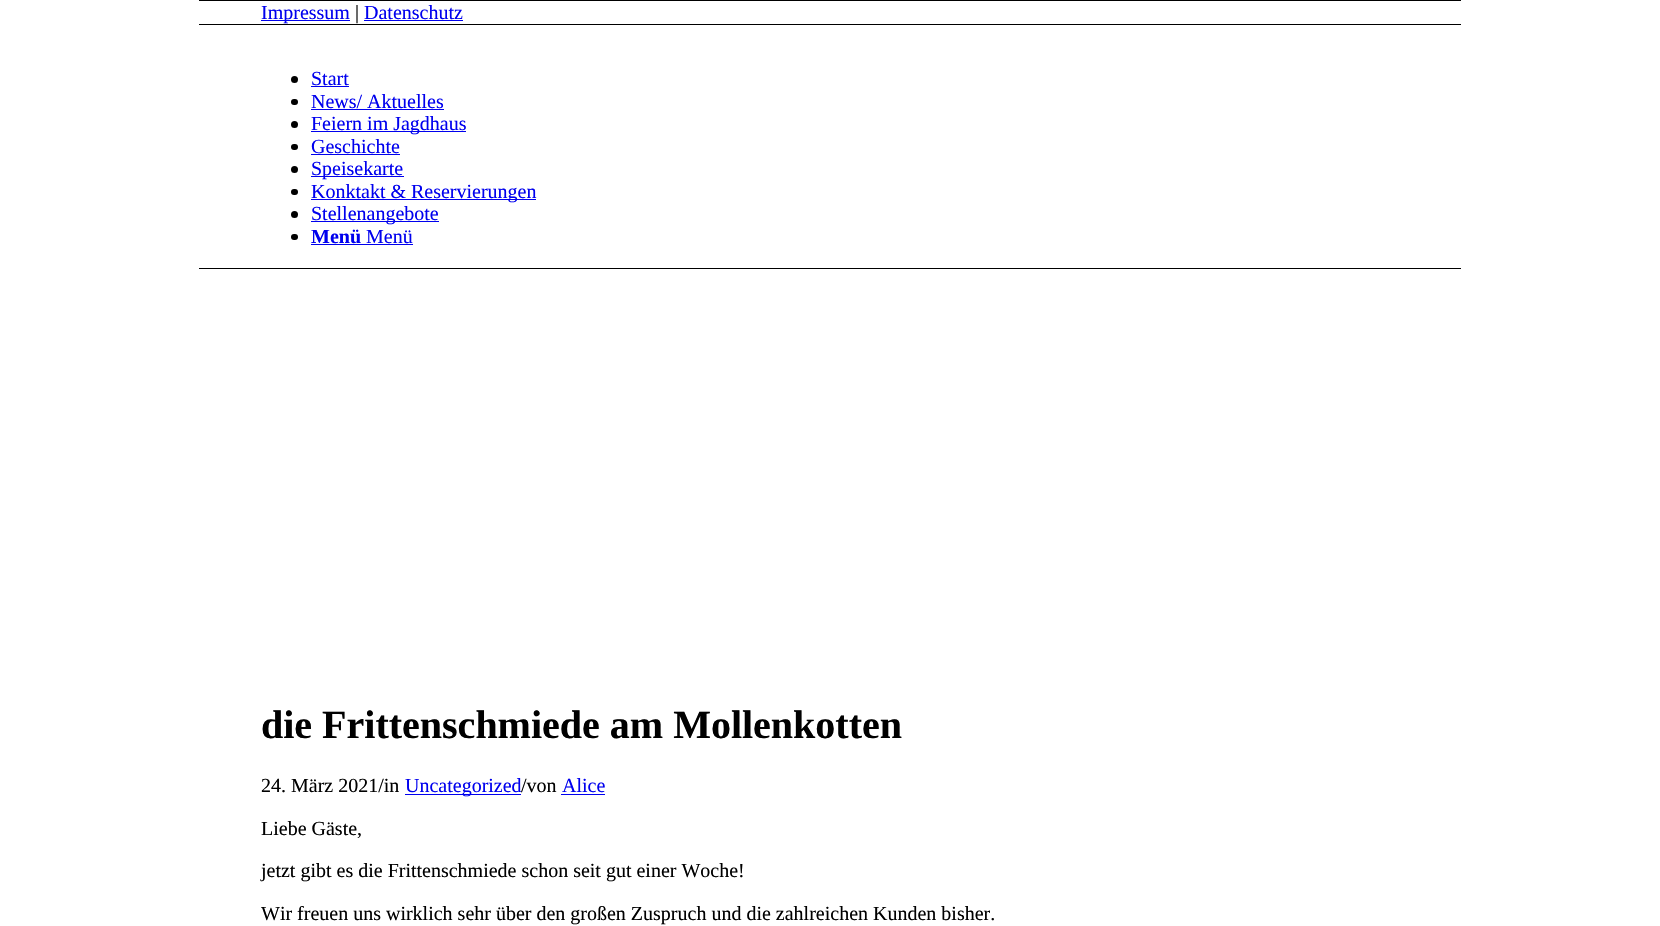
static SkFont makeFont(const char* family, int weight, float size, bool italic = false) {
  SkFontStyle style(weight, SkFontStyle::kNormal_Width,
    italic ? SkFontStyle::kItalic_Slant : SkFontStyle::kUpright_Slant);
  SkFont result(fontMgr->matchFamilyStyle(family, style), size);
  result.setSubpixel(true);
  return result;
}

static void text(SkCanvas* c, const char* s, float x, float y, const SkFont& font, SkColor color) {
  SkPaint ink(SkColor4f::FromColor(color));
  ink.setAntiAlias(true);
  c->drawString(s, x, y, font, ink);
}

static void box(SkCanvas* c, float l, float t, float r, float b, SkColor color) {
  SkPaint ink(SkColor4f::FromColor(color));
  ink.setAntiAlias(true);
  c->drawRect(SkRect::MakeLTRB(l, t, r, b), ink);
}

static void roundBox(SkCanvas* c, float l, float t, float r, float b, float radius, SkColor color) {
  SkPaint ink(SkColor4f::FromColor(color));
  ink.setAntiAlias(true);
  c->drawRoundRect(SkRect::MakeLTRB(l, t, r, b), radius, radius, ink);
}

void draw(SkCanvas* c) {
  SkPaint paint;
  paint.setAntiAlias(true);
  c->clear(0xffffffff);
  box(c, 199, 0, 1461, 1, 0xff000000);
  box(c, 261, 20, 350, 21, 0xff0000ee);
  SkFont face1 = makeFont("Liberation Serif", 400, 20);
  text(c, "Impressum", 261, 19, face1, 0xff0000ee);
  text(c, "|", 355, 19, face1, 0xff000000);
  text(c, "Datenschutz", 364, 19, face1, 0xff0000ee);
  box(c, 364, 20, 463, 21, 0xff0000ee);
  box(c, 199, 24, 1461, 25, 0xff000000);
  paint.setColor(0xff000000);
  c->drawCircle(294.5f, 79.5f, 3.5f, paint);
  text(c, "Start", 311, 85, face1, 0xff0000ee);
  box(c, 311, 86, 349, 87, 0xff0000ee);
  roundBox(c, 291, 99, 298, 105, 3, 0xff000000);
  text(c, "News/ Aktuelles", 311, 108, face1, 0xff0000ee);
  box(c, 311, 109, 444, 110, 0xff0000ee);
  c->drawCircle(294.5f, 124.5f, 3.5f, paint);
  box(c, 311, 131, 466, 132, 0xff0000ee);
  text(c, "Feiern im Jagdhaus", 311, 130, face1, 0xff0000ee);
  roundBox(c, 291, 144, 298, 150, 3, 0xff000000);
  text(c, "Geschichte", 311, 153, face1, 0xff0000ee);
  box(c, 311, 154, 400, 155, 0xff0000ee);
  c->drawCircle(294.5f, 169.5f, 3.5f, paint);
  box(c, 311, 176, 404, 177, 0xff0000ee);
  text(c, "Speisekarte", 311, 175, face1, 0xff0000ee);
  roundBox(c, 291, 189, 298, 195, 3, 0xff000000);
  box(c, 311, 199, 536, 200, 0xff0000ee);
  text(c, "Konktakt & Reservierungen", 311, 198, face1, 0xff0000ee);
  c->drawCircle(294.5f, 214.5f, 3.5f, paint);
  box(c, 311, 221, 439, 222, 0xff0000ee);
  text(c, "Stellenangebote", 311, 220, face1, 0xff0000ee);
  roundBox(c, 291, 234, 298, 240, 3, 0xff000000);
  SkFont face2 = makeFont("Liberation Serif", 700, 20);
  text(c, "Menü", 311, 243, face2, 0xff0000ee);
  box(c, 311, 244, 413, 245, 0xff0000ee);
  text(c, "Menü", 366, 243, face1, 0xff0000ee);
  box(c, 199, 268, 1461, 269, 0xff000000);
  SkFont face3 = makeFont("Liberation Serif", 700, 40);
  text(c, "die Frittenschmiede am Mollenkotten", 261, 738, face3, 0xff000000);
  text(c, "24. März 2021/in", 261, 792, face1, 0xff000000);
  box(c, 405, 794, 521, 795, 0xff0000ee);
  text(c, "Uncategorized", 405, 792, face1, 0xff0000ee);
  text(c, "/von", 521, 792, face1, 0xff000000);
  text(c, "Alice", 562, 792, face1, 0xff0000ee);
  box(c, 561, 794, 605, 795, 0xff0000ee);
  text(c, "Liebe Gäste,", 261, 835, face1, 0xff000000);
  text(c, "jetzt gibt es die Frittenschmiede schon seit gut einer Woche!", 261, 877, face1, 0xff000000);
  text(c, "Wir freuen uns wirklich sehr über den großen Zuspruch und die zahlreichen Kunden bisher.", 261, 920, face1, 0xff000000);
}
